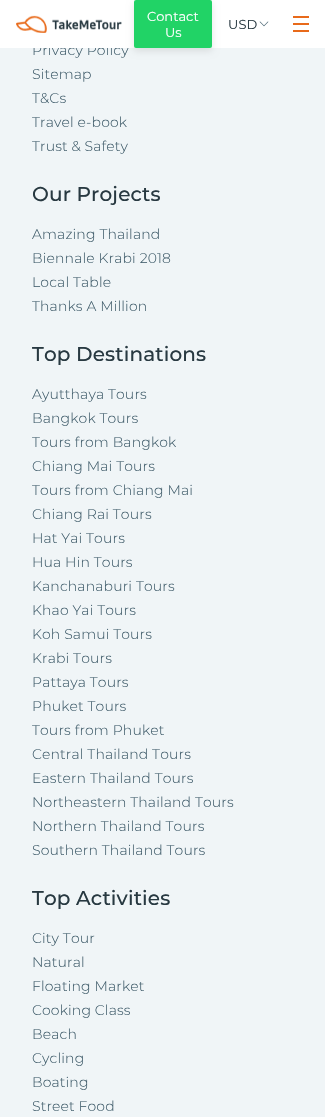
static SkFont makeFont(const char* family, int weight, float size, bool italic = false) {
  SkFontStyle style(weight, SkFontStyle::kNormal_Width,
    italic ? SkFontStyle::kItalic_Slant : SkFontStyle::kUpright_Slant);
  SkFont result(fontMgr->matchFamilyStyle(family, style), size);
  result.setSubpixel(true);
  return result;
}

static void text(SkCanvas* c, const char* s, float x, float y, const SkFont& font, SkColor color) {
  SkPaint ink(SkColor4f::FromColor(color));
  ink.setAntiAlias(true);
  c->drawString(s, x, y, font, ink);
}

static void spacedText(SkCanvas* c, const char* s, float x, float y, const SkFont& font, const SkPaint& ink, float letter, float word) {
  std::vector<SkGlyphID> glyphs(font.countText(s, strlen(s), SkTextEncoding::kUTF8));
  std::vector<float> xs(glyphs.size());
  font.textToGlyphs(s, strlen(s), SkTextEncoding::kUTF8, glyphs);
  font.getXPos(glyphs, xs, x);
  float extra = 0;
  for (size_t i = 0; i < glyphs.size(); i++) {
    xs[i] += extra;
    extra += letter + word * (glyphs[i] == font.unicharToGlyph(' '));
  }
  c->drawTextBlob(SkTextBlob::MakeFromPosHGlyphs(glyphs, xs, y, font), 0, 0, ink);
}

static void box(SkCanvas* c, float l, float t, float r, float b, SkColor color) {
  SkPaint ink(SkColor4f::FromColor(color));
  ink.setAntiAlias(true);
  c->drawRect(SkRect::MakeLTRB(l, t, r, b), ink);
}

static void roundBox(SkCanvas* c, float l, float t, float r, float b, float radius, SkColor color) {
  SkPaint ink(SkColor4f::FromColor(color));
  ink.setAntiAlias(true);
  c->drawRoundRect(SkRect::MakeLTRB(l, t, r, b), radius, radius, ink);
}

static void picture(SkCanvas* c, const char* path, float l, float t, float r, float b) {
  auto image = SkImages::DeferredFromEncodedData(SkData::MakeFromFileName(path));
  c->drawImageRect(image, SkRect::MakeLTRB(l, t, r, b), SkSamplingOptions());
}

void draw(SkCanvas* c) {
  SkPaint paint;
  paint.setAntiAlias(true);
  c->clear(0xfff0f5f7);
  SkFont face1 = makeFont("Montserrat", 300, 14);
  paint.setColor(0xff425e6c);
  spacedText(c, "Privacy Policy", 32, 55, face1, paint, 0.15f, 0);
  box(c, 0, 0, 325, 48, 0xffffffff);
  picture(c, "img_01.png", 16, 15, 122, 33);
  paint.setColor(0x1a000000);
  paint.setMaskFilter(SkMaskFilter::MakeBlur(kNormal_SkBlurStyle, 3.5f));
  c->drawRoundRect(SkRect::MakeLTRB(134, 3, 212, 51), 2, 2, paint);
  paint.setMaskFilter(nullptr);
  roundBox(c, 134, 0, 212, 48, 2, 0xff21d366);
  SkFont face2 = makeFont("Montserrat", 400, 13);
  text(c, "Contact", 147, 21, face2, 0xffffffff);
  text(c, "Us", 165, 37, face2, 0xffffffff);
  paint.setColor(0xff283941);
  spacedText(c, "USD", 228, 29, face2, paint, 0.15f, 0);
  picture(c, "img_02.png", 259, 21, 269, 27);
  box(c, 293, 16, 309, 18, 0xffe86a1a);
  box(c, 293, 23, 309, 25, 0xffe86a1a);
  box(c, 293, 30, 309, 32, 0xffe86a1a);
  paint.setColor(0xff425e6c);
  spacedText(c, "Sitemap", 32, 79, face1, paint, 0.15f, 0);
  spacedText(c, "T&Cs", 32, 103, face1, paint, 0.15f, 0);
  spacedText(c, "Travel e-book", 32, 127, face1, paint, 0.15f, 0);
  spacedText(c, "Trust & Safety", 32, 151, face1, paint, 0.15f, 0);
  SkFont face3 = makeFont("Montserrat", 500, 20);
  paint.setColor(0xff283941);
  spacedText(c, "Our Projects", 32, 201, face3, paint, 0.15f, 0);
  paint.setColor(0xff425e6c);
  spacedText(c, "Amazing Thailand", 32, 239, face1, paint, 0.15f, 0);
  spacedText(c, "Biennale Krabi 2018", 32, 263, face1, paint, 0.15f, 0);
  spacedText(c, "Local Table", 32, 287, face1, paint, 0.15f, 0);
  spacedText(c, "Thanks A Million", 32, 311, face1, paint, 0.15f, 0);
  paint.setColor(0xff283941);
  spacedText(c, "Top Destinations", 32, 361, face3, paint, 0.15f, 0);
  paint.setColor(0xff425e6c);
  spacedText(c, "Ayutthaya Tours", 32, 399, face1, paint, 0.15f, 0);
  spacedText(c, "Bangkok Tours", 32, 423, face1, paint, 0.15f, 0);
  spacedText(c, "Tours from Bangkok", 32, 447, face1, paint, 0.15f, 0);
  spacedText(c, "Chiang Mai Tours", 32, 471, face1, paint, 0.15f, 0);
  spacedText(c, "Tours from Chiang Mai", 32, 495, face1, paint, 0.15f, 0);
  spacedText(c, "Chiang Rai Tours", 32, 519, face1, paint, 0.15f, 0);
  spacedText(c, "Hat Yai Tours", 32, 543, face1, paint, 0.15f, 0);
  spacedText(c, "Hua Hin Tours", 32, 567, face1, paint, 0.15f, 0);
  spacedText(c, "Kanchanaburi Tours", 32, 591, face1, paint, 0.15f, 0);
  spacedText(c, "Khao Yai Tours", 32, 615, face1, paint, 0.15f, 0);
  spacedText(c, "Koh Samui Tours", 32, 639, face1, paint, 0.15f, 0);
  spacedText(c, "Krabi Tours", 32, 663, face1, paint, 0.15f, 0);
  spacedText(c, "Pattaya Tours", 32, 687, face1, paint, 0.15f, 0);
  spacedText(c, "Phuket Tours", 32, 711, face1, paint, 0.15f, 0);
  spacedText(c, "Tours from Phuket", 32, 735, face1, paint, 0.15f, 0);
  spacedText(c, "Central Thailand Tours", 32, 759, face1, paint, 0.15f, 0);
  spacedText(c, "Eastern Thailand Tours", 32, 783, face1, paint, 0.15f, 0);
  spacedText(c, "Northeastern Thailand Tours", 32, 807, face1, paint, 0.15f, 0);
  spacedText(c, "Northern Thailand Tours", 32, 831, face1, paint, 0.15f, 0);
  spacedText(c, "Southern Thailand Tours", 32, 855, face1, paint, 0.15f, 0);
  paint.setColor(0xff283941);
  spacedText(c, "Top Activities", 32, 905, face3, paint, 0.15f, 0);
  paint.setColor(0xff425e6c);
  spacedText(c, "City Tour", 32, 943, face1, paint, 0.15f, 0);
  spacedText(c, "Natural", 32, 967, face1, paint, 0.15f, 0);
  spacedText(c, "Floating Market", 32, 991, face1, paint, 0.15f, 0);
  spacedText(c, "Cooking Class", 32, 1015, face1, paint, 0.15f, 0);
  spacedText(c, "Beach", 32, 1039, face1, paint, 0.15f, 0);
  spacedText(c, "Cycling", 32, 1063, face1, paint, 0.15f, 0);
  spacedText(c, "Boating", 32, 1087, face1, paint, 0.15f, 0);
  spacedText(c, "Street Food", 32, 1111, face1, paint, 0.15f, 0);
}
